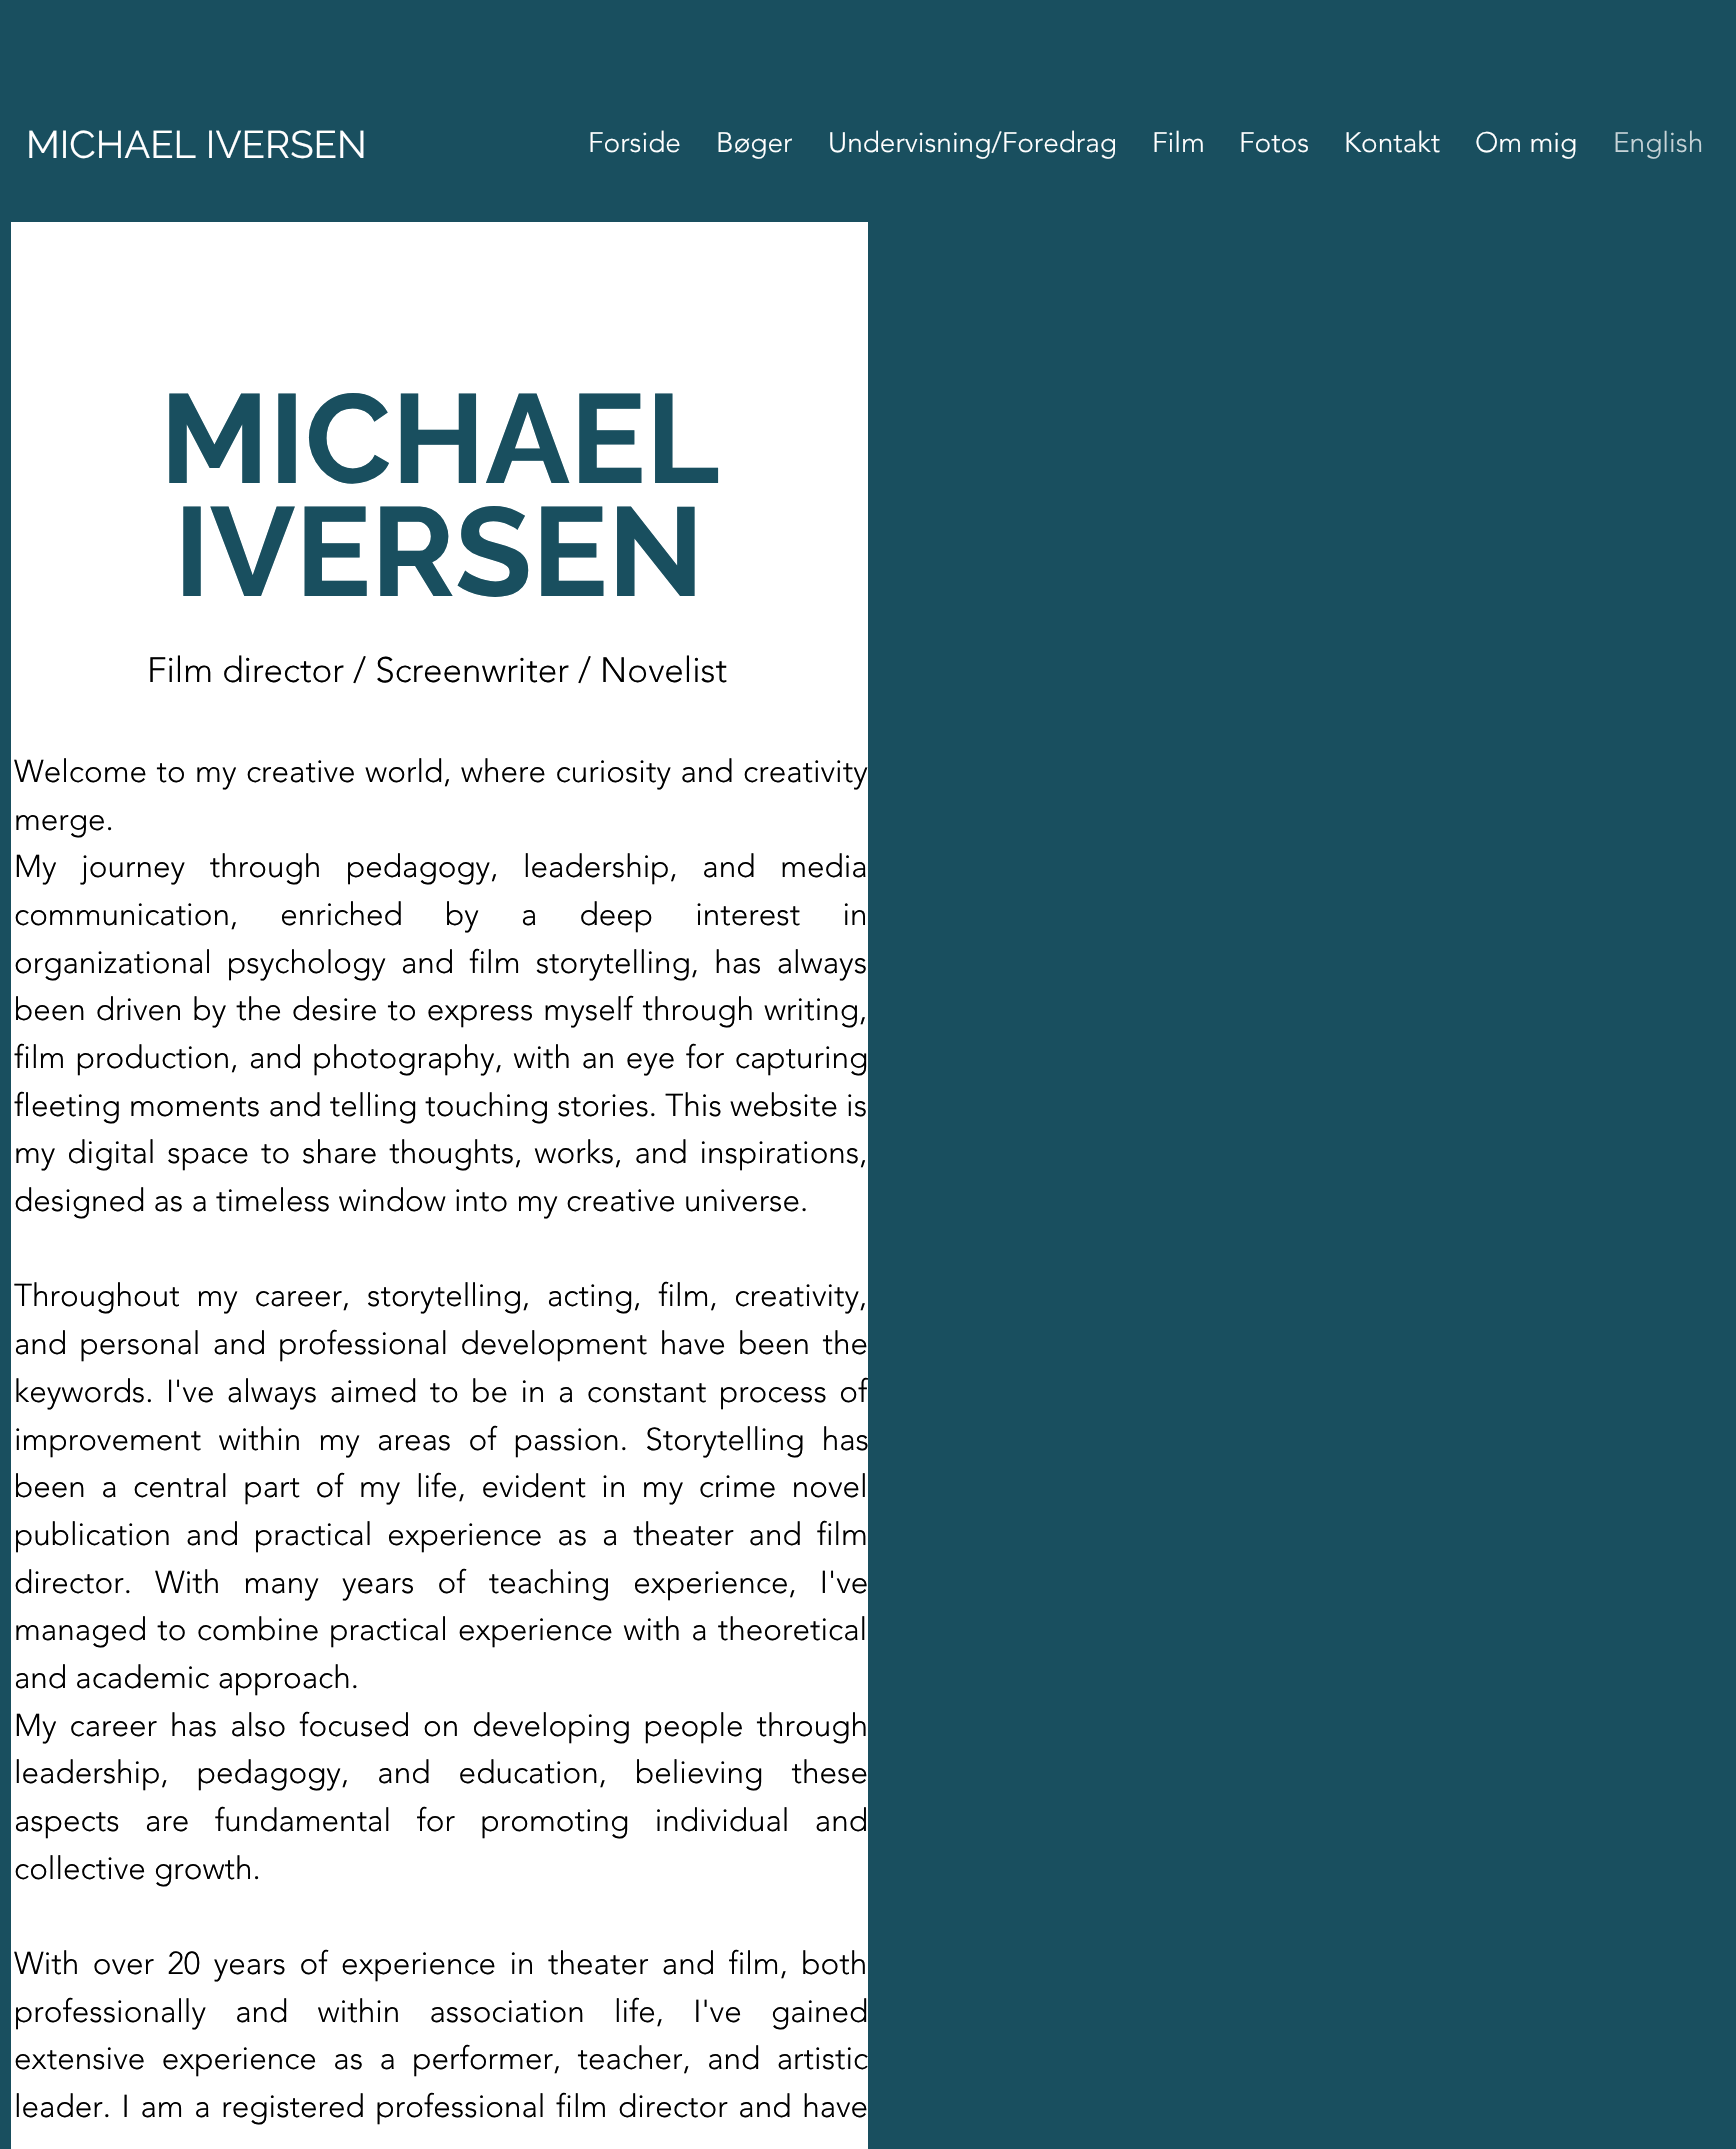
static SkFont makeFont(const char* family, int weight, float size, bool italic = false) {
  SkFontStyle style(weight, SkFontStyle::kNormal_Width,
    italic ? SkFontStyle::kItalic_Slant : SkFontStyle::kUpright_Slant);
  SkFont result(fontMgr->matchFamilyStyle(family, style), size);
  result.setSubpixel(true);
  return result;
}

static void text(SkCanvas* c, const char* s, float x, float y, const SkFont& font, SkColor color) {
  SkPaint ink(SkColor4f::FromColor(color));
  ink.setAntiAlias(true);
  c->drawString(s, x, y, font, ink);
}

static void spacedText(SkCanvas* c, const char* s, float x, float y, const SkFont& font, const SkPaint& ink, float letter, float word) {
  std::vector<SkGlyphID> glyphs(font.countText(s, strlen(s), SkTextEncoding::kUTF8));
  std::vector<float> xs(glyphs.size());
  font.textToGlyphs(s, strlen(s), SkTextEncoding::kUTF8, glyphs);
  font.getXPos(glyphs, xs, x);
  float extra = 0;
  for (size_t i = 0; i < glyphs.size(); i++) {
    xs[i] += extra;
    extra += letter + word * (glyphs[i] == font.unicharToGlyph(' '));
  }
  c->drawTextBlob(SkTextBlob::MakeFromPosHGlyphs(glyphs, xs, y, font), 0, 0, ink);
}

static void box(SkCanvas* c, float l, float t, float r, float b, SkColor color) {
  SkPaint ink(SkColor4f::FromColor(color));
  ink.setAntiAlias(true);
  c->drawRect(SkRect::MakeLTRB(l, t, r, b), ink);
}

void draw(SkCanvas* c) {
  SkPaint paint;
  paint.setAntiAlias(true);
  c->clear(0xff194f5f);
  SkFont face1 = makeFont("Raleway", 400, 38.5f);
  text(c, "MICHAEL IVERSEN", 26, 158, face1, 0xffffffff);
  SkFont face2 = makeFont("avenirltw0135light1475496", 300, 28);
  text(c, "Forside", 588, 152, face2, 0xffffffff);
  text(c, "Bøger", 716, 152, face2, 0xffffffff);
  text(c, "Undervisning/Foredrag", 828, 152, face2, 0xffffffff);
  text(c, "Film", 1152, 152, face2, 0xffffffff);
  text(c, "Fotos", 1239, 152, face2, 0xffffffff);
  text(c, "Kontakt", 1344, 152, face2, 0xffffffff);
  text(c, "Om mig", 1475, 152, face2, 0xffffffff);
  text(c, "English", 1613, 152, face2, 0xffc6d3d7);
  box(c, 11, 222, 868, 2149, 0xffffffff);
  SkFont face3 = makeFont("Raleway", 700, 126);
  text(c, "MICHAEL", 160, 483, face3, 0xff194f5f);
  text(c, "IVERSEN", 174, 596, face3, 0xff194f5f);
  SkFont face4 = makeFont("avenirltw0135light1475496", 300, 35);
  text(c, "Film director / Screenwriter / Novelist", 147, 682, face4, 0xff000000);
  SkFont face5 = makeFont("avenirltw0135light1475496", 300, 31.5f);
  paint.setColor(0xff000000);
  spacedText(c, "Welcome to my creative world, where curiosity and creativity", 14, 782, face5, paint, 0, 1.25f);
  text(c, "merge.", 14, 830, face5, 0xff000000);
  spacedText(c, "My journey through pedagogy, leadership, and media", 14, 877, face5, paint, 0, 16.5f);
  spacedText(c, "communication, enriched by a deep interest in", 14, 925, face5, paint, 0, 34);
  spacedText(c, "organizational psychology and film storytelling, has always", 14, 973, face5, paint, 0, 7);
  spacedText(c, "been driven by the desire to express myself through writing,", 14, 1020, face5, paint, 0, 1.75f);
  spacedText(c, "film production, and photography, with an eye for capturing", 14, 1068, face5, paint, 0, 2.25f);
  text(c, "fleeting moments and telling touching stories. This website is", 14, 1116, face5, 0xff000000);
  spacedText(c, "my digital space to share thoughts, works, and inspirations,", 14, 1163, face5, paint, 0, 3.75f);
  text(c, "designed as a timeless window into my creative universe.", 14, 1211, face5, 0xff000000);
  spacedText(c, "Throughout my career, storytelling, acting, film, creativity,", 14, 1306, face5, paint, 0, 8.5f);
  spacedText(c, "and personal and professional development have been the", 14, 1354, face5, paint, 0, 4.25f);
  spacedText(c, "keywords. I've always aimed to be in a constant process of", 14, 1402, face5, paint, 0, 4.25f);
  spacedText(c, "improvement within my areas of passion. Storytelling has", 14, 1450, face5, paint, 0, 9);
  spacedText(c, "been a central part of my life, evident in my crime novel", 14, 1497, face5, paint, 0, 7.25f);
  spacedText(c, "publication and practical experience as a theater and film", 14, 1545, face5, paint, 0, 6.75f);
  spacedText(c, "director. With many years of teaching experience, I've", 14, 1593, face5, paint, 0, 15);
  spacedText(c, "managed to combine practical experience with a theoretical", 14, 1640, face5, paint, 0, 2);
  text(c, "and academic approach.", 14, 1688, face5, 0xff000000);
  spacedText(c, "My career has also focused on developing people through", 14, 1736, face5, paint, 0, 4.75f);
  spacedText(c, "leadership, pedagogy, and education, believing these", 14, 1783, face5, paint, 0, 20);
  spacedText(c, "aspects are fundamental for promoting individual and", 14, 1831, face5, paint, 0, 17.25f);
  text(c, "collective growth.", 14, 1879, face5, 0xff000000);
  spacedText(c, "With over 20 years of experience in theater and film, both", 14, 1974, face5, paint, 0, 5.25f);
  spacedText(c, "professionally and within association life, I've gained", 14, 2022, face5, paint, 0, 21);
  spacedText(c, "extensive experience as a performer, teacher, and artistic", 14, 2069, face5, paint, 0, 8.25f);
  spacedText(c, "leader. I am a registered professional film director and have", 14, 2117, face5, paint, 0, 2.5f);
}
